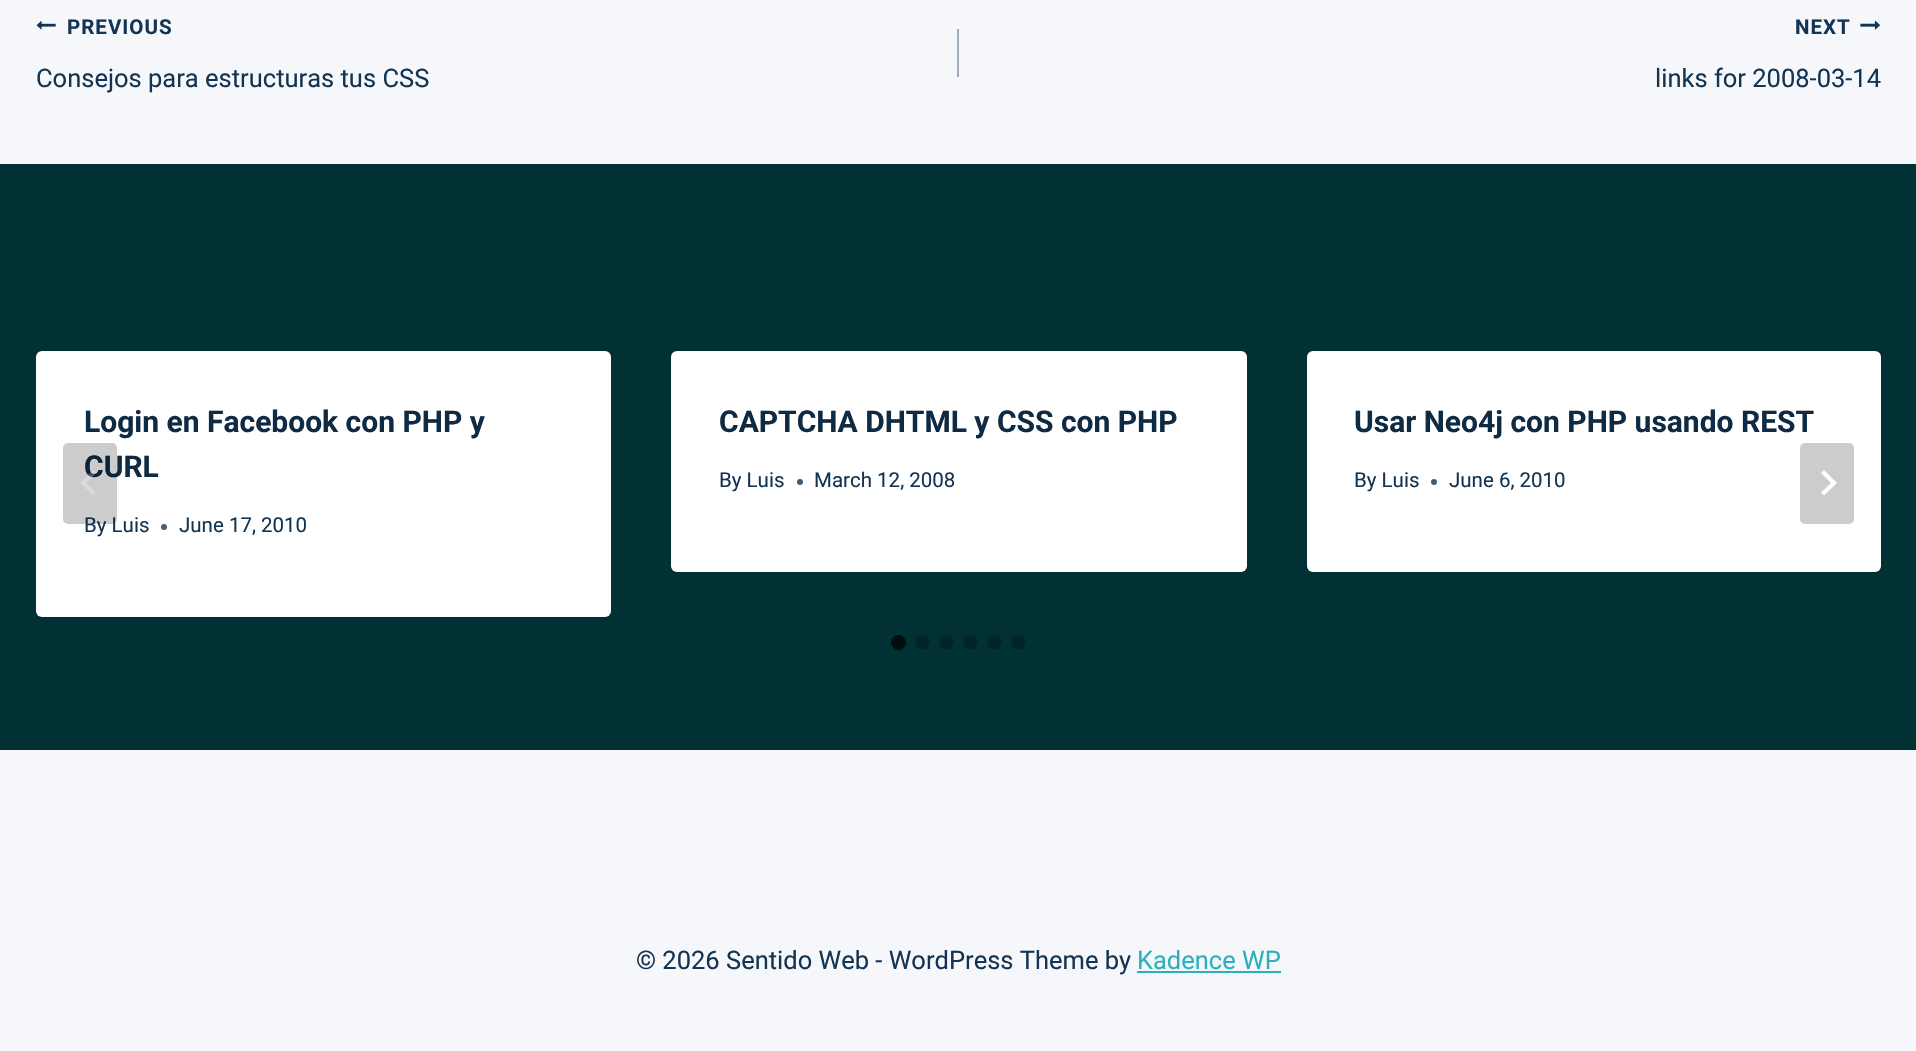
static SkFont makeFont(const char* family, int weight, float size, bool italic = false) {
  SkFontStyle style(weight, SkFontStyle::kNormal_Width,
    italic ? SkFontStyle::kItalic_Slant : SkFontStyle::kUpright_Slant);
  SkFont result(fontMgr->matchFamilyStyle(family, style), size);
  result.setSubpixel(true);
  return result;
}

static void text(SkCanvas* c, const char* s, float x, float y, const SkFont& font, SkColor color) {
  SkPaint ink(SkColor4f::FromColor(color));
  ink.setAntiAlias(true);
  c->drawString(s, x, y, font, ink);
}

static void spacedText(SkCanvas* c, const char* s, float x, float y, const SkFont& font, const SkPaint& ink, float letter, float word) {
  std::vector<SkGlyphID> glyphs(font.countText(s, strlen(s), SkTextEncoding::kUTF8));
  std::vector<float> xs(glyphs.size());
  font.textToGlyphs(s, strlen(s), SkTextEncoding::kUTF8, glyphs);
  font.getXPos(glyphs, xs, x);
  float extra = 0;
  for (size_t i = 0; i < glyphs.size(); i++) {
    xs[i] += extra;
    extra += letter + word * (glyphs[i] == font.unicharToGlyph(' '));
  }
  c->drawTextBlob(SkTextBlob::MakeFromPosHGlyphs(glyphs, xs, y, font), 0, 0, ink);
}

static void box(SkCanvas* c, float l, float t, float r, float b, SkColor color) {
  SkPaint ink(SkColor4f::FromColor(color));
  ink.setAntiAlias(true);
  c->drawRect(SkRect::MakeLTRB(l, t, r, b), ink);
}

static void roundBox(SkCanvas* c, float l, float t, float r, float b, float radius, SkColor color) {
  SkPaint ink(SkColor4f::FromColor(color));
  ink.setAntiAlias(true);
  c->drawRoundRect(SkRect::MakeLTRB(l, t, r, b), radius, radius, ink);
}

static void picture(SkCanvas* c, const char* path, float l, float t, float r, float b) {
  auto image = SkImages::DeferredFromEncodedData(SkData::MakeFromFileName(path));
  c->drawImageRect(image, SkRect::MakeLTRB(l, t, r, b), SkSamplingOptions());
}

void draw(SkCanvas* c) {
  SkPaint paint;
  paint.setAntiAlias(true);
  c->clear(0xfff5f7fa);
  picture(c, "img_01.png", 36, 21, 56, 30);
  SkFont face1 = makeFont("Roboto", 700, 20.5f);
  paint.setColor(0xff133453);
  spacedText(c, "PREVIOUS", 67, 34, face1, paint, 1, 0);
  SkFont face2 = makeFont("Roboto", 400, 25.5f);
  text(c, "Consejos para estructuras tus CSS", 36, 87, face2, 0xff133453);
  box(c, 957, 29, 959, 77, 0xffa0aec0);
  spacedText(c, "NEXT", 1795, 34, face1, paint, 1, 0);
  picture(c, "img_02.png", 1860, 20, 1880, 30);
  text(c, "links for 2008-03-14", 1655, 87, face2, 0xff133453);
  box(c, 0, 164, 1916, 750, 0xff013035);
  roundBox(c, 36, 351, 611, 617, 6, 0xffffffff);
  SkFont face3 = makeFont("Roboto", 700, 30);
  text(c, "Login en Facebook con PHP y", 84, 432, face3, 0xff0f2a43);
  text(c, "CURL", 84, 477, face3, 0xff0f2a43);
  SkFont face4 = makeFont("Roboto", 400, 20.5f);
  text(c, "By Luis", 84, 532, face4, 0xff133453);
  paint.setColor(0xff425d75);
  c->drawCircle(164, 527, 3, paint);
  text(c, "June 17, 2010", 179, 532, face4, 0xff133453);
  roundBox(c, 671, 351, 1247, 572, 6, 0xffffffff);
  text(c, "CAPTCHA DHTML y CSS con PHP", 719, 432, face3, 0xff0f2a43);
  text(c, "By Luis", 719, 487, face4, 0xff133453);
  c->drawCircle(800, 482, 3, paint);
  text(c, "March 12, 2008", 814, 487, face4, 0xff133453);
  roundBox(c, 1307, 351, 1881, 572, 6, 0xffffffff);
  text(c, "Usar Neo4j con PHP usando REST", 1354, 432, face3, 0xff0f2a43);
  text(c, "By Luis", 1354, 487, face4, 0xff133453);
  c->drawCircle(1434, 482, 3, paint);
  text(c, "June 6, 2010", 1449, 487, face4, 0xff133453);
  roundBox(c, 63, 443, 117, 524, 5, 0x33000000);
  paint.setColor(0x40ffffff);
  c->drawPath(SkPathBuilder().moveTo(93, 470).lineTo(96, 473).lineTo(86, 483).lineTo(96, 492.5f).lineTo(93, 495.5f).lineTo(80, 483).close().detach(), paint);
  roundBox(c, 1800, 443, 1854, 524, 5, 0xffcccccc);
  paint.setColor(0xffffffff);
  c->drawPath(SkPathBuilder().moveTo(1824, 470).lineTo(1821, 473).lineTo(1831, 483).lineTo(1821, 492.5f).lineTo(1824, 495.5f).lineTo(1837, 483).close().detach(), paint);
  paint.setColor(0xff000c0d);
  c->drawCircle(898.5f, 642.5f, 7.5f, paint);
  paint.setColor(0xff012428);
  c->drawCircle(922.5f, 642.5f, 7.5f, paint);
  c->drawCircle(946.5f, 642.5f, 7.5f, paint);
  c->drawCircle(970.5f, 642.5f, 7.5f, paint);
  c->drawCircle(994.5f, 642.5f, 7.5f, paint);
  c->drawCircle(1018.5f, 642.5f, 7.5f, paint);
  text(c, "© 2026 Sentido Web - WordPress Theme by", 636, 969, face2, 0xff133453);
  text(c, "Kadence WP", 1137, 969, face2, 0xff2cb1bc);
  box(c, 1137, 971, 1281, 973, 0xff2cb1bc);
}
